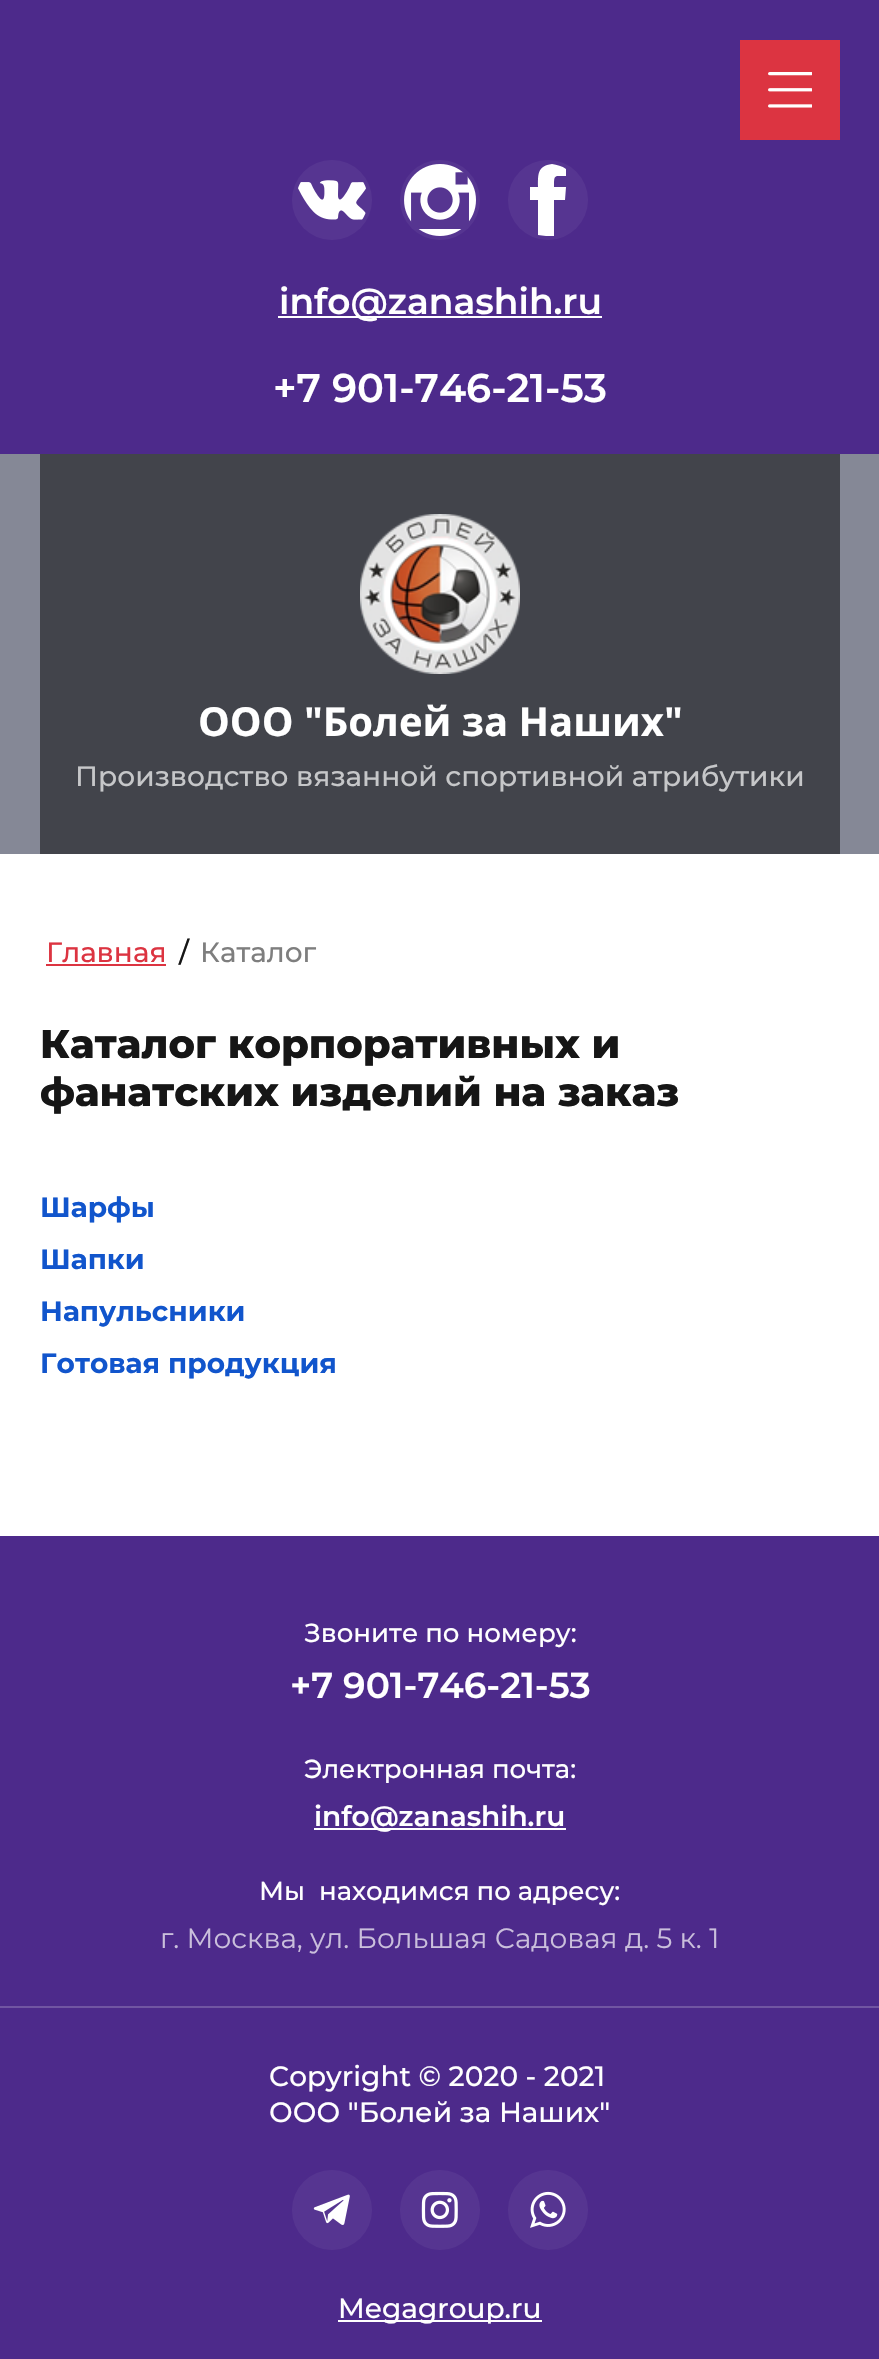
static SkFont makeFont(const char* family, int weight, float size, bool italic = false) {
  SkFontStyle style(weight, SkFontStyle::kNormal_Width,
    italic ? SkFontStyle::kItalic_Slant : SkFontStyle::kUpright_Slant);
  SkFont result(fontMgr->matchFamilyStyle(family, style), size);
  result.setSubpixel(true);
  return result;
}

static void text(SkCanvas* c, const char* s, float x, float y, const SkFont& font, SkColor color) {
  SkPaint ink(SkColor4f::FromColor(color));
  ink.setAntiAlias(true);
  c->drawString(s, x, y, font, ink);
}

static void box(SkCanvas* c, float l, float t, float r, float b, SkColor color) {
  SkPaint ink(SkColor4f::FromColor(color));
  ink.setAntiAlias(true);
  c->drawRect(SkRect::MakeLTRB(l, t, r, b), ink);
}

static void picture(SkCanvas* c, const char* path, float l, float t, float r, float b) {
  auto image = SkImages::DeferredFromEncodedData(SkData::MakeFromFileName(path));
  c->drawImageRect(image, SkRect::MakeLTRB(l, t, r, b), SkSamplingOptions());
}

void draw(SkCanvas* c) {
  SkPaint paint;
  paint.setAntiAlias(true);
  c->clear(0xffffffff);
  box(c, 0, 0, 879, 454, 0xff4d2a8b);
  box(c, 740, 40, 840, 140, 0xffdc3441);
  picture(c, "img_01.png", 768, 72, 812, 108);
  paint.setColor(0xff563591);
  c->drawCircle(332, 200, 40, paint);
  picture(c, "img_02.png", 298, 180, 366, 220);
  c->drawCircle(440, 200, 40, paint);
  picture(c, "img_03.png", 404, 164, 476, 236);
  c->drawCircle(548, 200, 40, paint);
  paint.setColor(0xffffffff);
  c->drawPath(SkPathBuilder().moveTo(552, 164).cubicTo(537, 166, 538, 175, 538, 187).lineTo(530, 187).lineTo(530, 200).lineTo(538, 200).lineTo(538, 235).cubicTo(543, 236, 549, 236, 554, 236).lineTo(554, 200).lineTo(565, 200).lineTo(566, 187).lineTo(554, 187).cubicTo(554, 174, 554, 176, 566, 176).lineTo(566, 169).cubicTo(562, 166, 557, 165, 552, 164).close().detach(), paint);
  box(c, 278, 316, 602, 318, 0xffffffff);
  SkFont face1 = makeFont("Montserrat", 600, 36);
  text(c, "info@zanashih.ru", 279, 314, face1, 0xffffffff);
  SkFont face2 = makeFont("Montserrat", 600, 40);
  text(c, "+7 901-746-21-53", 273, 402, face2, 0xffffffff);
  box(c, 0, 454, 879, 854, 0xff858896);
  box(c, 40, 454, 840, 854, 0xff42444b);
  picture(c, "img_04.png", 360, 514, 520, 674);
  SkFont face3 = makeFont("Open Sans", 700, 40);
  text(c, "ООО \"Болей за Наших\"", 198, 736, face3, 0xffffffff);
  SkFont face4 = makeFont("Montserrat", 500, 28);
  text(c, "Производство вязанной спортивной атрибутики", 75, 786, face4, 0xffc6c7c9);
  text(c, "Главная", 46, 962, face4, 0xffdc3441);
  box(c, 46, 964, 166, 966, 0xffdc3441);
  text(c, "/", 179, 962, face4, 0xff161616);
  text(c, "Каталог", 200, 962, face4, 0xff7e7e7e);
  SkFont face5 = makeFont("Montserrat", 800, 40);
  text(c, "Каталог корпоративных и", 40, 1058, face5, 0xff161616);
  text(c, "фанатских изделий на заказ", 40, 1106, face5, 0xff161616);
  SkFont face6 = makeFont("Montserrat", 700, 28);
  text(c, "Шарфы", 40, 1217, face6, 0xff1155cc);
  text(c, "Шапки", 40, 1269, face6, 0xff1155cc);
  text(c, "Напульсники", 40, 1321, face6, 0xff1155cc);
  text(c, "Готовая продукция", 40, 1373, face6, 0xff1155cc);
  box(c, 0, 1536, 879, 2359, 0xff4d2a8b);
  SkFont face7 = makeFont("Montserrat", 500, 26);
  text(c, "Звоните по номеру:", 304, 1642, face7, 0xffffffff);
  text(c, "+7 901-746-21-53", 290, 1698, face1, 0xffffffff);
  text(c, "Электронная почта:", 304, 1778, face7, 0xffffffff);
  box(c, 314, 1828, 566, 1830, 0xffffffff);
  SkFont face8 = makeFont("Montserrat", 600, 28);
  text(c, "info@zanashih.ru", 314, 1826, face8, 0xffffffff);
  text(c, "Мы  находимся по адресу:", 259, 1900, face7, 0xffffffff);
  SkFont face9 = makeFont("Montserrat", 400, 28);
  text(c, "г. Москва, ул. Большая Садовая д. 5 к. 1", 160, 1948, face9, 0xffcabfdc);
  box(c, 0, 2006, 879, 2008, 0xff7155a2);
  text(c, "Copyright © 2020 - 2021", 269, 2086, face4, 0xffffffff);
  text(c, "ООО \"Болей за Наших\"", 269, 2122, face4, 0xffffffff);
  paint.setColor(0xff563591);
  c->drawCircle(332, 2210, 40, paint);
  picture(c, "img_05.png", 313, 2194, 350, 2225);
  c->drawCircle(440, 2210, 40, paint);
  picture(c, "img_06.png", 421, 2191, 458, 2228);
  c->drawCircle(548, 2210, 40, paint);
  picture(c, "img_07.png", 530, 2191, 566, 2228);
  box(c, 338, 2320, 542, 2322, 0xffffffff);
  text(c, "Megagroup.ru", 338, 2318, face4, 0xffffffff);
}
